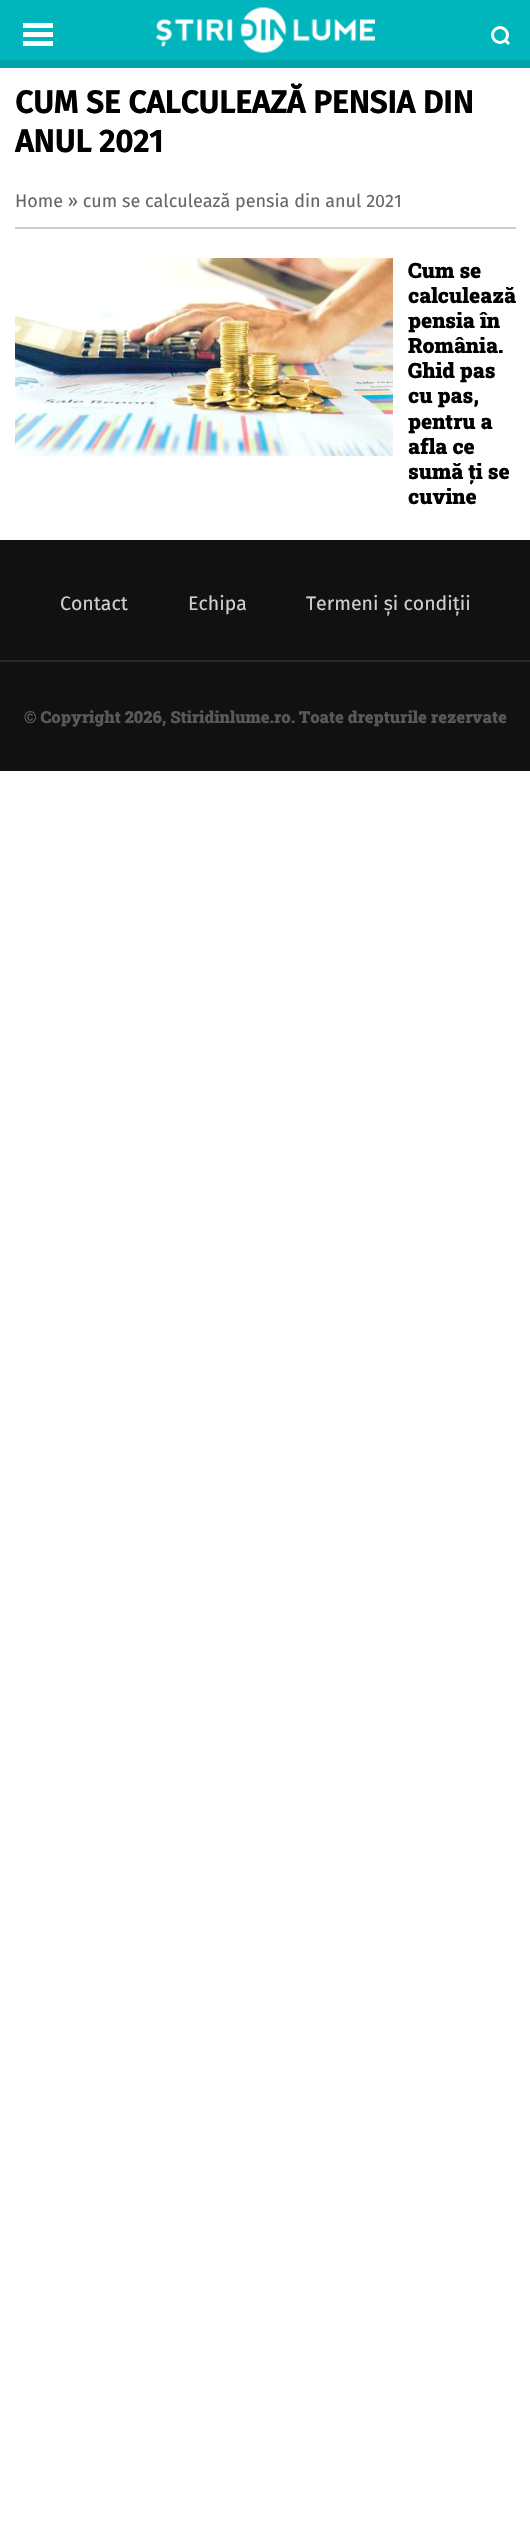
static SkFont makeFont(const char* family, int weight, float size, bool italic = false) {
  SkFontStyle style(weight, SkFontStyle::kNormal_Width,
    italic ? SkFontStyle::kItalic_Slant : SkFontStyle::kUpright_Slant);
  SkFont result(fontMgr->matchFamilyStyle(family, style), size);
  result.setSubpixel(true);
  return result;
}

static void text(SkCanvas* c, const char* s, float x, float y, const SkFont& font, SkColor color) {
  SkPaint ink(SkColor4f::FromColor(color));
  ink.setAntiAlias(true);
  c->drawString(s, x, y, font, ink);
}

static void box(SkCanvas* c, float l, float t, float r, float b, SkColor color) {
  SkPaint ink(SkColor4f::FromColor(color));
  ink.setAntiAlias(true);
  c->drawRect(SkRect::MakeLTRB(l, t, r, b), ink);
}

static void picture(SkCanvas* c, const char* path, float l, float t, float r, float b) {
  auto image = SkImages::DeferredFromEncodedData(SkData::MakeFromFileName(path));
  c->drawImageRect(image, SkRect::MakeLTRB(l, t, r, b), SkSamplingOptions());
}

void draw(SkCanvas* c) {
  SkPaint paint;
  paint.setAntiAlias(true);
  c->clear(0xffffffff);
  box(c, 0, 0, 530, 60, 0xff00b5bb);
  box(c, 23, 32, 53, 37, 0xffffffff);
  box(c, 23, 23, 53, 28, 0xffffffff);
  box(c, 23, 41, 53, 46, 0xffffffff);
  picture(c, "img_01.png", 156, 7, 375, 53);
  paint.setStyle(SkPaint::kStroke_Style);
  paint.setStrokeWidth(3);
  paint.setColor(0xffffffff);
  c->drawCircle(500, 35, 7.5f, paint);
  paint.setStyle(SkPaint::kFill_Style);
  c->drawPath(SkPathBuilder().moveTo(504, 41).lineTo(506, 39).lineTo(510, 43).lineTo(508, 45).close().detach(), paint);
  box(c, 0, 60, 530, 68, 0xff00a3a8);
  box(c, 15, 227, 516, 229, 0xffcccccc);
  SkFont face1 = makeFont("Fira Sans", 700, 31.5f);
  text(c, "CUM SE CALCULEAZĂ PENSIA DIN", 15, 113, face1, 0xff000000);
  text(c, "ANUL 2021", 15, 152, face1, 0xff000000);
  SkFont face2 = makeFont("Fira Sans", 400, 18);
  text(c, "Home » cum se calculează pensia din anul 2021", 15, 207, face2, 0xff666666);
  picture(c, "img_02.png", 15, 258, 393, 456);
  SkFont face3 = makeFont("Roboto Slab", 900, 21);
  text(c, "Cum se", 408, 278, face3, 0xff000000);
  text(c, "calculează", 408, 303, face3, 0xff000000);
  text(c, "pensia în", 408, 328, face3, 0xff000000);
  text(c, "România.", 408, 353, face3, 0xff000000);
  text(c, "Ghid pas", 408, 378, face3, 0xff000000);
  text(c, "cu pas,", 408, 403, face3, 0xff000000);
  text(c, "pentru a", 408, 429, face3, 0xff000000);
  text(c, "afla ce", 408, 454, face3, 0xff000000);
  text(c, "sumă ți se", 408, 479, face3, 0xff000000);
  text(c, "cuvine", 408, 504, face3, 0xff000000);
  box(c, 0, 540, 530, 771, 0xff111111);
  SkFont face4 = makeFont("Fira Sans", 400, 19.5f);
  text(c, "Contact", 60, 610, face4, 0xffcfcfcf);
  text(c, "Echipa", 188, 610, face4, 0xffcfcfcf);
  text(c, "Termeni și condiții", 306, 610, face4, 0xffcfcfcf);
  box(c, 0, 660, 530, 662, 0xff292929);
  SkFont face5 = makeFont("Roboto Slab", 900, 16.5f);
  text(c, "© Copyright 2026, Stiridinlume.ro. Toate drepturile rezervate", 24, 723, face5, 0xff585858);
}
